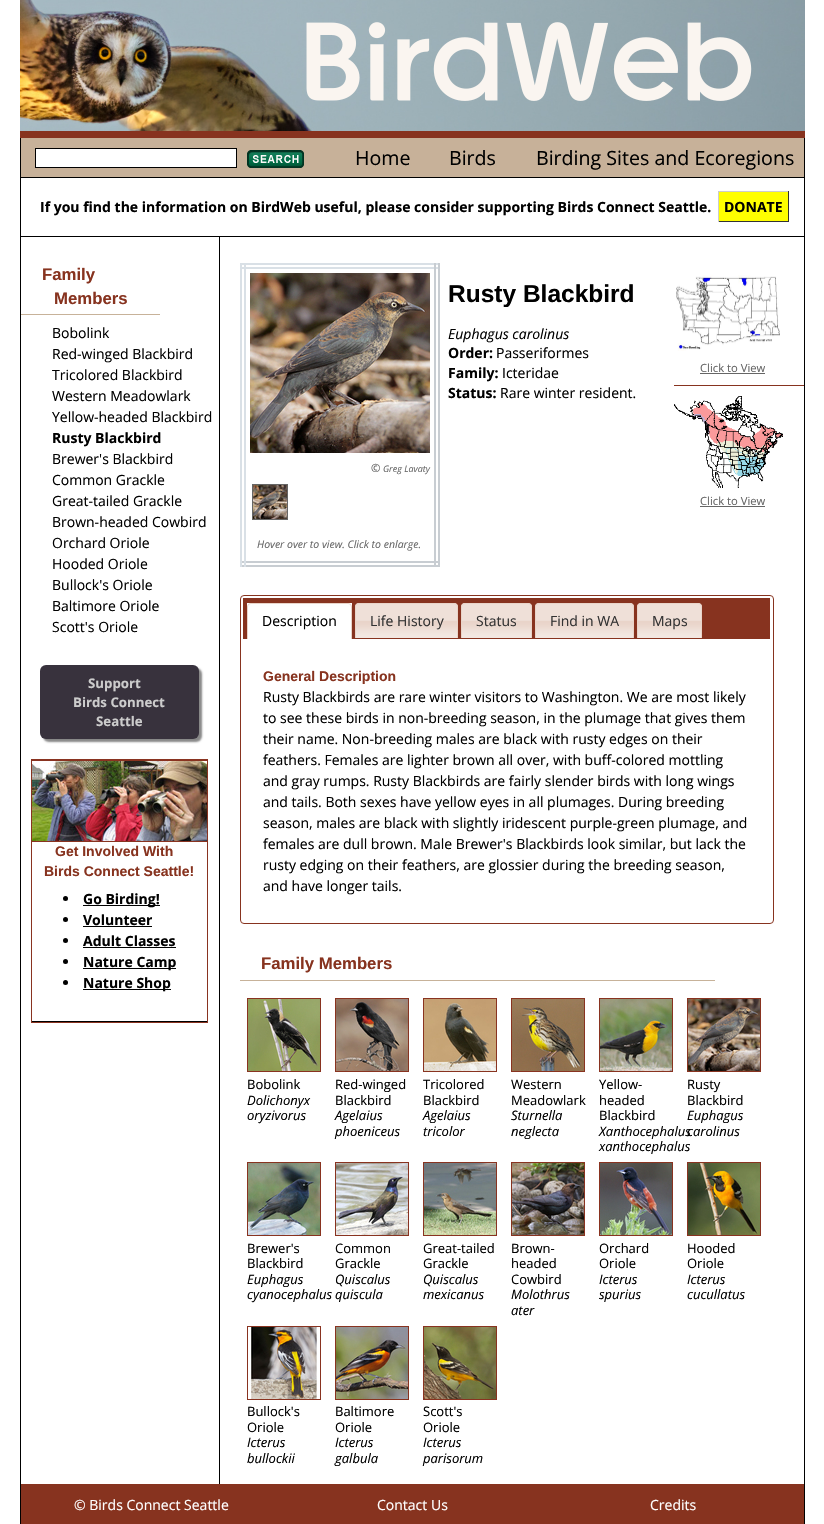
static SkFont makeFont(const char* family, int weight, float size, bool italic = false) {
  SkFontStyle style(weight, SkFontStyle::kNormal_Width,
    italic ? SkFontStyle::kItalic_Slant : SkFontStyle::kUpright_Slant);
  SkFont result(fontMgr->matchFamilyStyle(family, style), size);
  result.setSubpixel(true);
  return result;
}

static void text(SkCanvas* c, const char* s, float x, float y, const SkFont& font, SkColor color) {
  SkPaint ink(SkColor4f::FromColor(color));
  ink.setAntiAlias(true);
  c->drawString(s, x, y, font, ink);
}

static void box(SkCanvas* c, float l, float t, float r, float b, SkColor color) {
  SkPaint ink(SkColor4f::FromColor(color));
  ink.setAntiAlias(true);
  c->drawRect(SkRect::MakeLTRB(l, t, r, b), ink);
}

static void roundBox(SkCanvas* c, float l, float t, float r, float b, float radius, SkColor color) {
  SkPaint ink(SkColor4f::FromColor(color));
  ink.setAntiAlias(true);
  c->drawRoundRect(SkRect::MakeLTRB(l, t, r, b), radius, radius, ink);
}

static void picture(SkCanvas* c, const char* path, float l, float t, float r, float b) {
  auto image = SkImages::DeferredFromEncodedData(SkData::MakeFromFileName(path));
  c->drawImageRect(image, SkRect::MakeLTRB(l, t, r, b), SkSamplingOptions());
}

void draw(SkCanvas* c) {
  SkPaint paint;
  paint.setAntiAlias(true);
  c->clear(0xffffffff);
  box(c, 20, 131, 805, 138, 0xff87331f);
  picture(c, "img_01.png", 20, 0, 805, 131);
  box(c, 804, 138, 805, 1524, 0xff000000);
  box(c, 20, 138, 21, 1524, 0xff000000);
  box(c, 21, 138, 804, 177, 0xffc7b199);
  paint.setColor(0xffffffff);
  c->drawRect(SkRect::MakeLTRB(35.5f, 148.5f, 236.5f, 167.5f), paint);
  paint.setStyle(SkPaint::kStroke_Style);
  paint.setStrokeWidth(1);
  paint.setColor(0xff000000);
  c->drawRect(SkRect::MakeLTRB(35.5f, 148.5f, 236.5f, 167.5f), paint);
  picture(c, "img_02.png", 247, 150, 304, 168);
  SkFont face1 = makeFont("Open Sans", 400, 19.6f);
  text(c, "Home", 355, 165, face1, 0xff000000);
  text(c, "Birds", 449, 165, face1, 0xff000000);
  text(c, "Birding Sites and Ecoregions", 536, 165, face1, 0xff000000);
  box(c, 21, 177, 804, 178, 0xff000000);
  box(c, 21, 236, 804, 237, 0xff000000);
  SkFont face2 = makeFont("Open Sans", 700, 14);
  text(c, "If you find the information on BirdWeb useful, please consider supporting Birds Connect Seattle.", 40, 212, face2, 0xff000000);
  box(c, 719, 192, 788, 221, 0xffffff00);
  text(c, "DONATE", 724, 212, face2, 0xff000000);
  box(c, 718, 191, 789, 192, 0xffcccccc);
  box(c, 788, 191, 789, 222, 0xff333333);
  box(c, 718, 221, 789, 222, 0xff333333);
  box(c, 718, 191, 719, 222, 0xffcccccc);
  box(c, 21, 314, 160, 315, 0xffc7b299);
  SkFont face3 = makeFont("Liberation Sans", 700, 16.75f);
  text(c, "Family", 42, 280, face3, 0xff87331f);
  text(c, "Members", 54, 304, face3, 0xff87331f);
  SkFont face4 = makeFont("Open Sans", 400, 14);
  text(c, "Bobolink", 52, 338, face4, 0xff000000);
  text(c, "Red-winged Blackbird", 52, 359, face4, 0xff000000);
  text(c, "Tricolored Blackbird", 52, 380, face4, 0xff000000);
  text(c, "Western Meadowlark", 52, 401, face4, 0xff000000);
  text(c, "Yellow-headed Blackbird", 52, 422, face4, 0xff000000);
  text(c, "Rusty Blackbird", 52, 443, face2, 0xff000000);
  text(c, "Brewer's Blackbird", 52, 464, face4, 0xff000000);
  text(c, "Common Grackle", 52, 485, face4, 0xff000000);
  text(c, "Great-tailed Grackle", 52, 506, face4, 0xff000000);
  text(c, "Brown-headed Cowbird", 52, 527, face4, 0xff000000);
  text(c, "Orchard Oriole", 52, 548, face4, 0xff000000);
  text(c, "Hooded Oriole", 52, 569, face4, 0xff000000);
  text(c, "Bullock's Oriole", 52, 590, face4, 0xff000000);
  text(c, "Baltimore Oriole", 52, 611, face4, 0xff000000);
  text(c, "Scott's Oriole", 52, 632, face4, 0xff000000);
  paint.setStyle(SkPaint::kFill_Style);
  paint.setColor(0xff888888);
  paint.setMaskFilter(SkMaskFilter::MakeBlur(kNormal_SkBlurStyle, 1));
  c->drawRoundRect(SkRect::MakeLTRB(43, 668, 202, 742), 6, 6, paint);
  paint.setMaskFilter(nullptr);
  roundBox(c, 40, 665, 199, 739, 6, 0xff38323d);
  SkFont face5 = makeFont("Open Sans", 700, 13.25f);
  text(c, "Support", 88, 688, face5, 0xffcccccc);
  text(c, "Birds Connect", 73, 707, face5, 0xffcccccc);
  text(c, "Seattle", 96, 726, face5, 0xffcccccc);
  paint.setStyle(SkPaint::kStroke_Style);
  paint.setColor(0xff893320);
  c->drawRect(SkRect::MakeLTRB(31.5f, 759.5f, 207.5f, 1022.5f), paint);
  box(c, 32, 760, 207, 761, 0xff893320);
  box(c, 32, 841, 207, 842, 0xff893320);
  picture(c, "img_03.png", 32, 761, 207, 841);
  SkFont face6 = makeFont("Liberation Sans", 700, 14);
  text(c, "Get Involved With", 55, 856, face6, 0xff87331f);
  text(c, "Birds Connect Seattle!", 44, 876, face6, 0xff87331f);
  paint.setStyle(SkPaint::kFill_Style);
  paint.setColor(0xff000000);
  c->drawCircle(65.5f, 898.5f, 2.5f, paint);
  box(c, 83, 905, 160, 906, 0xff000000);
  text(c, "Go Birding!", 83, 904, face2, 0xff000000);
  c->drawCircle(65.5f, 919.5f, 2.5f, paint);
  text(c, "Volunteer", 83, 925, face2, 0xff000000);
  box(c, 83, 926, 152, 927, 0xff000000);
  c->drawCircle(65.5f, 940.5f, 2.5f, paint);
  text(c, "Adult Classes", 83, 946, face2, 0xff000000);
  box(c, 83, 947, 176, 948, 0xff000000);
  c->drawCircle(65.5f, 961.5f, 2.5f, paint);
  box(c, 83, 968, 176, 969, 0xff000000);
  text(c, "Nature Camp", 83, 967, face2, 0xff000000);
  c->drawCircle(65.5f, 982.5f, 2.5f, paint);
  box(c, 83, 989, 171, 990, 0xff000000);
  text(c, "Nature Shop", 83, 988, face2, 0xff000000);
  box(c, 32, 1021, 207, 1022, 0xff000000);
  box(c, 219, 237, 220, 1484, 0xff000000);
  SkFont face7 = makeFont("Liberation Sans", 700, 24.5f);
  text(c, "Rusty Blackbird", 448, 302, face7, 0xff000000);
  SkFont face8 = makeFont("Open Sans", 400, 14, true);
  text(c, "Euphagus carolinus", 448, 339, face8, 0xff000000);
  text(c, "Order:", 448, 358, face2, 0xff000000);
  text(c, "Passeriformes", 496, 358, face4, 0xff000000);
  text(c, "Family:", 448, 378, face2, 0xff000000);
  text(c, "Icteridae", 502, 378, face4, 0xff000000);
  text(c, "Status:", 448, 398, face2, 0xff000000);
  text(c, "Rare winter resident.", 500, 398, face4, 0xff000000);
  box(c, 240, 263, 440, 265, 0xffd9e0e6);
  box(c, 240, 267, 440, 269, 0xffd9e0e6);
  box(c, 434, 263, 436, 567, 0xffc8cdd2);
  box(c, 438, 263, 440, 567, 0xffc8cdd2);
  box(c, 240, 561, 440, 563, 0xffc8cdd2);
  box(c, 240, 565, 440, 567, 0xffc8cdd2);
  box(c, 240, 263, 242, 567, 0xffd9e0e6);
  box(c, 244, 263, 246, 567, 0xffd9e0e6);
  picture(c, "img_04.png", 250, 273, 430, 453);
  SkFont face9 = makeFont("Open Sans", 400, 11.25f, true);
  text(c, "©", 371, 472, face9, 0xff666666);
  SkFont face10 = makeFont("Open Sans", 400, 9, true);
  text(c, "Greg Lavaty", 383, 472, face10, 0xff666666);
  paint.setStyle(SkPaint::kStroke_Style);
  paint.setColor(0xff666666);
  c->drawRect(SkRect::MakeLTRB(252.5f, 484.5f, 287.5f, 519.5f), paint);
  picture(c, "img_05.png", 253, 485, 287, 519);
  SkFont face11 = makeFont("Open Sans", 400, 10.5f, true);
  text(c, "Hover over to view. Click to enlarge.", 257, 548, face11, 0xff666666);
  picture(c, "img_06.png", 676, 275, 780, 351);
  SkFont face12 = makeFont("Open Sans", 400, 11.25f);
  text(c, "Click to View", 700, 372, face12, 0xff666666);
  box(c, 700, 373, 765, 374, 0xff666666);
  box(c, 674, 385, 804, 386, 0xff87331f);
  picture(c, "img_07.png", 674, 396, 783, 488);
  text(c, "Click to View", 700, 505, face12, 0xff666666);
  box(c, 700, 506, 765, 507, 0xff666666);
  paint.setColor(0xff87331f);
  c->drawRoundRect(SkRect::MakeLTRB(240.5f, 595.5f, 773.5f, 923.5f), 3.5f, 3.5f, paint);
  box(c, 243, 598, 770, 639, 0xff87331f);
  box(c, 248, 607, 351, 639, 0xffffffff);
  box(c, 247, 603, 352, 607, 0xfffefefe);
  paint.setStyle(SkPaint::kFill_Style);
  paint.setColor(0xffe9d4c9);
  c->drawPath(SkPathBuilder(SkPathFillType::kEvenOdd).moveTo(251, 603).lineTo(348, 603).cubicTo(350, 603, 352, 605, 352, 607).lineTo(352, 639).lineTo(247, 639).lineTo(247, 607).cubicTo(247, 605, 249, 603, 251, 603).close().moveTo(251, 604).lineTo(348, 604).cubicTo(350, 604, 351, 605, 351, 607).lineTo(351, 639).lineTo(248, 639).lineTo(248, 607).cubicTo(248, 605, 249, 604, 251, 604).close().detach(), paint);
  text(c, "Description", 262, 626, face4, 0xff000000);
  picture(c, "img_08.png", 355, 603, 458, 638);
  c->drawPath(SkPathBuilder(SkPathFillType::kEvenOdd).moveTo(359, 603).lineTo(454, 603).cubicTo(456, 603, 458, 605, 458, 607).lineTo(458, 638).lineTo(355, 638).lineTo(355, 607).cubicTo(355, 605, 357, 603, 359, 603).close().moveTo(359, 604).lineTo(454, 604).cubicTo(456, 604, 457, 605, 457, 607).lineTo(457, 638).lineTo(356, 638).lineTo(356, 607).cubicTo(356, 605, 357, 604, 359, 604).close().detach(), paint);
  text(c, "Life History", 370, 626, face4, 0xff333333);
  picture(c, "img_09.png", 461, 603, 532, 638);
  c->drawPath(SkPathBuilder(SkPathFillType::kEvenOdd).moveTo(465, 603).lineTo(528, 603).cubicTo(530, 603, 532, 605, 532, 607).lineTo(532, 638).lineTo(461, 638).lineTo(461, 607).cubicTo(461, 605, 463, 603, 465, 603).close().moveTo(465, 604).lineTo(528, 604).cubicTo(530, 604, 531, 605, 531, 607).lineTo(531, 638).lineTo(462, 638).lineTo(462, 607).cubicTo(462, 605, 463, 604, 465, 604).close().detach(), paint);
  text(c, "Status", 476, 626, face4, 0xff333333);
  picture(c, "img_10.png", 535, 603, 634, 638);
  c->drawPath(SkPathBuilder(SkPathFillType::kEvenOdd).moveTo(539, 603).lineTo(630, 603).cubicTo(632, 603, 634, 605, 634, 607).lineTo(634, 638).lineTo(535, 638).lineTo(535, 607).cubicTo(535, 605, 537, 603, 539, 603).close().moveTo(539, 604).lineTo(630, 604).cubicTo(632, 604, 633, 605, 633, 607).lineTo(633, 638).lineTo(536, 638).lineTo(536, 607).cubicTo(536, 605, 537, 604, 539, 604).close().detach(), paint);
  text(c, "Find in WA", 550, 626, face4, 0xff333333);
  picture(c, "img_11.png", 637, 603, 702, 638);
  c->drawPath(SkPathBuilder(SkPathFillType::kEvenOdd).moveTo(641, 603).lineTo(698, 603).cubicTo(700, 603, 702, 605, 702, 607).lineTo(702, 638).lineTo(637, 638).lineTo(637, 607).cubicTo(637, 605, 639, 603, 641, 603).close().moveTo(641, 604).lineTo(698, 604).cubicTo(700, 604, 701, 605, 701, 607).lineTo(701, 638).lineTo(638, 638).lineTo(638, 607).cubicTo(638, 605, 639, 604, 641, 604).close().detach(), paint);
  text(c, "Maps", 652, 626, face4, 0xff333333);
  text(c, "General Description", 263, 681, face6, 0xff87331f);
  text(c, "Rusty Blackbirds are rare winter visitors to Washington. We are most likely", 263, 702, face4, 0xff000000);
  text(c, "to see these birds in non-breeding season, in the plumage that gives them", 263, 723, face4, 0xff000000);
  text(c, "their name. Non-breeding males are black with rusty edges on their", 263, 744, face4, 0xff000000);
  text(c, "feathers. Females are lighter brown all over, with buff-colored mottling", 263, 765, face4, 0xff000000);
  text(c, "and gray rumps. Rusty Blackbirds are fairly slender birds with long wings", 263, 786, face4, 0xff000000);
  text(c, "and tails. Both sexes have yellow eyes in all plumages. During breeding", 263, 807, face4, 0xff000000);
  text(c, "season, males are black with slightly iridescent purple-green plumage, and", 263, 828, face4, 0xff000000);
  text(c, "females are dull brown. Male Brewer's Blackbirds look similar, but lack the", 263, 849, face4, 0xff000000);
  text(c, "rusty edging on their feathers, are glossier during the breeding season,", 263, 870, face4, 0xff000000);
  text(c, "and have longer tails.", 263, 891, face4, 0xff000000);
  box(c, 240, 980, 715, 981, 0xffc7b299);
  text(c, "Family Members", 261, 969, face3, 0xff87331f);
  paint.setStyle(SkPaint::kStroke_Style);
  paint.setColor(0xff893320);
  c->drawRect(SkRect::MakeLTRB(247.5f, 998.5f, 320.5f, 1071.5f), paint);
  picture(c, "img_12.png", 248, 999, 320, 1071);
  SkFont face13 = makeFont("Open Sans", 400, 13);
  text(c, "Bobolink", 247, 1089, face13, 0xff000000);
  SkFont face14 = makeFont("Open Sans", 400, 13, true);
  text(c, "Dolichonyx", 247, 1105, face14, 0xff000000);
  text(c, "oryzivorus", 247, 1120, face14, 0xff000000);
  c->drawRect(SkRect::MakeLTRB(335.5f, 998.5f, 408.5f, 1071.5f), paint);
  picture(c, "img_13.png", 336, 999, 408, 1071);
  text(c, "Red-winged", 335, 1089, face13, 0xff000000);
  text(c, "Blackbird", 335, 1105, face13, 0xff000000);
  text(c, "Agelaius", 335, 1120, face14, 0xff000000);
  text(c, "phoeniceus", 335, 1136, face14, 0xff000000);
  c->drawRect(SkRect::MakeLTRB(423.5f, 998.5f, 496.5f, 1071.5f), paint);
  picture(c, "img_14.png", 424, 999, 496, 1071);
  text(c, "Tricolored", 423, 1089, face13, 0xff000000);
  text(c, "Blackbird", 423, 1105, face13, 0xff000000);
  text(c, "Agelaius", 423, 1120, face14, 0xff000000);
  text(c, "tricolor", 423, 1136, face14, 0xff000000);
  c->drawRect(SkRect::MakeLTRB(511.5f, 998.5f, 584.5f, 1071.5f), paint);
  picture(c, "img_15.png", 512, 999, 584, 1071);
  text(c, "Western", 511, 1089, face13, 0xff000000);
  text(c, "Meadowlark", 511, 1105, face13, 0xff000000);
  text(c, "Sturnella", 511, 1120, face14, 0xff000000);
  text(c, "neglecta", 511, 1136, face14, 0xff000000);
  c->drawRect(SkRect::MakeLTRB(599.5f, 998.5f, 672.5f, 1071.5f), paint);
  picture(c, "img_16.png", 600, 999, 672, 1071);
  text(c, "Yellow-", 599, 1089, face13, 0xff000000);
  text(c, "headed", 599, 1105, face13, 0xff000000);
  text(c, "Blackbird", 599, 1120, face13, 0xff000000);
  text(c, "Xanthocephalus", 599, 1136, face14, 0xff000000);
  text(c, "xanthocephalus", 599, 1151, face14, 0xff000000);
  c->drawRect(SkRect::MakeLTRB(687.5f, 998.5f, 760.5f, 1071.5f), paint);
  picture(c, "img_17.png", 688, 999, 760, 1071);
  text(c, "Rusty", 687, 1089, face13, 0xff000000);
  text(c, "Blackbird", 687, 1105, face13, 0xff000000);
  text(c, "Euphagus", 687, 1120, face14, 0xff000000);
  text(c, "carolinus", 687, 1136, face14, 0xff000000);
  c->drawRect(SkRect::MakeLTRB(247.5f, 1162.5f, 320.5f, 1235.5f), paint);
  picture(c, "img_18.png", 248, 1163, 320, 1235);
  text(c, "Brewer's", 247, 1253, face13, 0xff000000);
  text(c, "Blackbird", 247, 1268, face13, 0xff000000);
  text(c, "Euphagus", 247, 1284, face14, 0xff000000);
  text(c, "cyanocephalus", 247, 1299, face14, 0xff000000);
  c->drawRect(SkRect::MakeLTRB(335.5f, 1162.5f, 408.5f, 1235.5f), paint);
  picture(c, "img_19.png", 336, 1163, 408, 1235);
  text(c, "Common", 335, 1253, face13, 0xff000000);
  text(c, "Grackle", 335, 1268, face13, 0xff000000);
  text(c, "Quiscalus", 335, 1284, face14, 0xff000000);
  text(c, "quiscula", 335, 1299, face14, 0xff000000);
  c->drawRect(SkRect::MakeLTRB(423.5f, 1162.5f, 496.5f, 1235.5f), paint);
  picture(c, "img_20.png", 424, 1163, 496, 1235);
  text(c, "Great-tailed", 423, 1253, face13, 0xff000000);
  text(c, "Grackle", 423, 1268, face13, 0xff000000);
  text(c, "Quiscalus", 423, 1284, face14, 0xff000000);
  text(c, "mexicanus", 423, 1299, face14, 0xff000000);
  c->drawRect(SkRect::MakeLTRB(511.5f, 1162.5f, 584.5f, 1235.5f), paint);
  picture(c, "img_21.png", 512, 1163, 584, 1235);
  text(c, "Brown-", 511, 1253, face13, 0xff000000);
  text(c, "headed", 511, 1268, face13, 0xff000000);
  text(c, "Cowbird", 511, 1284, face13, 0xff000000);
  text(c, "Molothrus", 511, 1299, face14, 0xff000000);
  text(c, "ater", 511, 1315, face14, 0xff000000);
  c->drawRect(SkRect::MakeLTRB(599.5f, 1162.5f, 672.5f, 1235.5f), paint);
  picture(c, "img_22.png", 600, 1163, 672, 1235);
  text(c, "Orchard", 599, 1253, face13, 0xff000000);
  text(c, "Oriole", 599, 1268, face13, 0xff000000);
  text(c, "Icterus", 599, 1284, face14, 0xff000000);
  text(c, "spurius", 599, 1299, face14, 0xff000000);
  c->drawRect(SkRect::MakeLTRB(687.5f, 1162.5f, 760.5f, 1235.5f), paint);
  picture(c, "img_23.png", 688, 1163, 760, 1235);
  text(c, "Hooded", 687, 1253, face13, 0xff000000);
  text(c, "Oriole", 687, 1268, face13, 0xff000000);
  text(c, "Icterus", 687, 1284, face14, 0xff000000);
  text(c, "cucullatus", 687, 1299, face14, 0xff000000);
  c->drawRect(SkRect::MakeLTRB(247.5f, 1326.5f, 320.5f, 1399.5f), paint);
  picture(c, "img_24.png", 251, 1327, 317, 1399);
  text(c, "Bullock's", 247, 1416, face13, 0xff000000);
  text(c, "Oriole", 247, 1432, face13, 0xff000000);
  text(c, "Icterus", 247, 1447, face14, 0xff000000);
  text(c, "bullockii", 247, 1463, face14, 0xff000000);
  c->drawRect(SkRect::MakeLTRB(335.5f, 1326.5f, 408.5f, 1399.5f), paint);
  picture(c, "img_25.png", 336, 1327, 408, 1399);
  text(c, "Baltimore", 335, 1416, face13, 0xff000000);
  text(c, "Oriole", 335, 1432, face13, 0xff000000);
  text(c, "Icterus", 335, 1447, face14, 0xff000000);
  text(c, "galbula", 335, 1463, face14, 0xff000000);
  c->drawRect(SkRect::MakeLTRB(423.5f, 1326.5f, 496.5f, 1399.5f), paint);
  picture(c, "img_26.png", 424, 1327, 496, 1399);
  text(c, "Scott's", 423, 1416, face13, 0xff000000);
  text(c, "Oriole", 423, 1432, face13, 0xff000000);
  text(c, "Icterus", 423, 1447, face14, 0xff000000);
  text(c, "parisorum", 423, 1463, face14, 0xff000000);
  box(c, 21, 1484, 804, 1524, 0xff87331f);
  text(c, "© Birds Connect Seattle", 74, 1510, face4, 0xffffffff);
  text(c, "Contact Us", 377, 1510, face4, 0xffffffff);
  text(c, "Credits", 650, 1510, face4, 0xffffffff);
}
